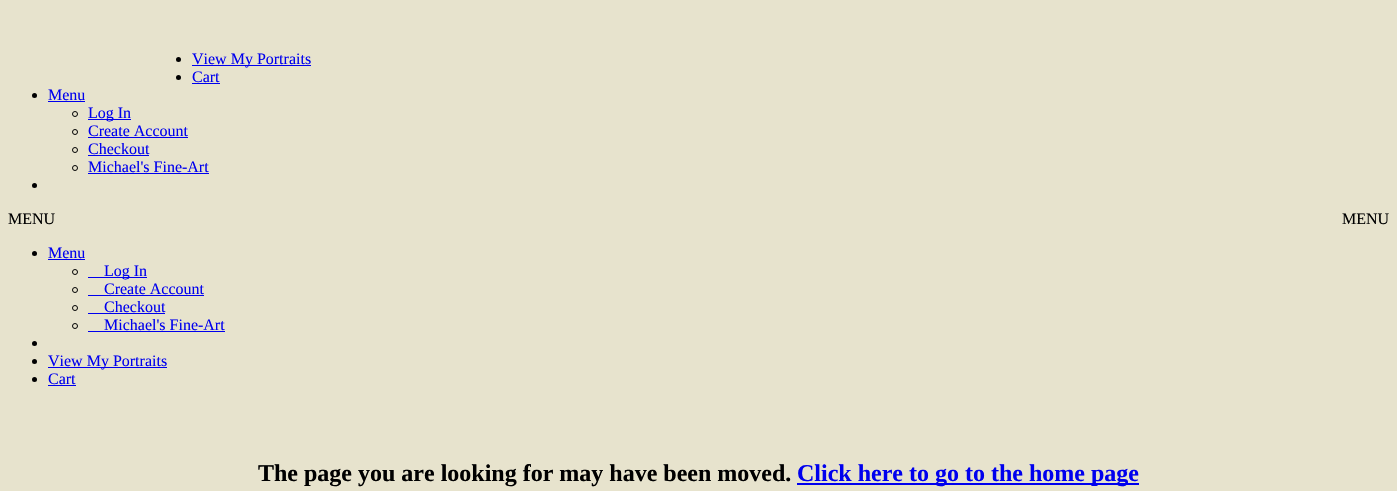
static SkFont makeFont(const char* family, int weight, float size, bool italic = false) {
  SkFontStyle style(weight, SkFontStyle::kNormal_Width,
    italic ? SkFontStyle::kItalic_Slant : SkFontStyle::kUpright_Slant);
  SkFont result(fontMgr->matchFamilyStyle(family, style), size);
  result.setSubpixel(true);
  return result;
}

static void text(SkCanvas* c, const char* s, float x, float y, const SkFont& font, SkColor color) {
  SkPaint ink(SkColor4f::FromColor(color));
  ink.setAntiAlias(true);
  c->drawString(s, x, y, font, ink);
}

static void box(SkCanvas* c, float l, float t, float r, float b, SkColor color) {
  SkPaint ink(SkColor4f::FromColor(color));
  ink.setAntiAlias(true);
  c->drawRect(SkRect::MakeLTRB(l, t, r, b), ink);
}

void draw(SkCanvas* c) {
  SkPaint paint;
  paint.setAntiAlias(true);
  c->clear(0xffe7e3cd);
  paint.setColor(0xff000000);
  c->drawCircle(178.5f, 59.5f, 2.5f, paint);
  box(c, 192, 65, 311, 66, 0xff0000ee);
  SkFont face1 = makeFont("Liberation Serif", 400, 16);
  text(c, "View My Portraits", 192, 64, face1, 0xff0000ee);
  c->drawCircle(178.5f, 77.5f, 2.5f, paint);
  text(c, "Cart", 192, 82, face1, 0xff0000ee);
  box(c, 192, 83, 220, 84, 0xff0000ee);
  c->drawCircle(34.5f, 95.5f, 2.5f, paint);
  text(c, "Menu", 48, 100, face1, 0xff0000ee);
  box(c, 48, 101, 85, 102, 0xff0000ee);
  paint.setStyle(SkPaint::kStroke_Style);
  paint.setStrokeWidth(1);
  c->drawCircle(75, 114, 2.5f, paint);
  box(c, 88, 119, 131, 120, 0xff0000ee);
  text(c, "Log In", 88, 118, face1, 0xff0000ee);
  c->drawCircle(75, 132, 2.5f, paint);
  text(c, "Create Account", 88, 136, face1, 0xff0000ee);
  box(c, 88, 137, 188, 138, 0xff0000ee);
  c->drawCircle(75, 150, 2.5f, paint);
  text(c, "Checkout", 88, 154, face1, 0xff0000ee);
  box(c, 88, 155, 149, 156, 0xff0000ee);
  c->drawCircle(75, 168, 2.5f, paint);
  text(c, "Michael's Fine-Art", 88, 172, face1, 0xff0000ee);
  box(c, 88, 173, 209, 174, 0xff0000ee);
  paint.setStyle(SkPaint::kFill_Style);
  c->drawCircle(34.5f, 185.5f, 2.5f, paint);
  text(c, "MENU", 1342, 224, face1, 0xff000000);
  text(c, "MENU", 8, 224, face1, 0xff000000);
  c->drawCircle(34.5f, 253.5f, 2.5f, paint);
  text(c, "Menu", 48, 258, face1, 0xff0000ee);
  box(c, 48, 259, 85, 260, 0xff0000ee);
  paint.setStyle(SkPaint::kStroke_Style);
  c->drawCircle(75, 272, 2.5f, paint);
  box(c, 88, 277, 147, 278, 0xff0000ee);
  text(c, "Log In", 104, 276, face1, 0xff0000ee);
  c->drawCircle(75, 290, 2.5f, paint);
  text(c, "Create Account", 104, 294, face1, 0xff0000ee);
  box(c, 88, 295, 204, 296, 0xff0000ee);
  c->drawCircle(75, 308, 2.5f, paint);
  text(c, "Checkout", 104, 312, face1, 0xff0000ee);
  box(c, 88, 313, 165, 314, 0xff0000ee);
  c->drawCircle(75, 326, 2.5f, paint);
  text(c, "Michael's Fine-Art", 104, 330, face1, 0xff0000ee);
  box(c, 88, 331, 225, 332, 0xff0000ee);
  paint.setStyle(SkPaint::kFill_Style);
  c->drawCircle(34.5f, 343.5f, 2.5f, paint);
  c->drawCircle(34.5f, 361.5f, 2.5f, paint);
  box(c, 48, 367, 167, 368, 0xff0000ee);
  text(c, "View My Portraits", 48, 366, face1, 0xff0000ee);
  c->drawCircle(34.5f, 379.5f, 2.5f, paint);
  text(c, "Cart", 48, 384, face1, 0xff0000ee);
  box(c, 48, 385, 76, 386, 0xff0000ee);
  SkFont face2 = makeFont("Liberation Serif", 700, 24);
  text(c, "The page you are looking for may have been moved.", 258, 481, face2, 0xff000000);
  box(c, 797, 483, 1139, 485, 0xff0000ee);
  text(c, "Click here to go to the home page", 797, 481, face2, 0xff0000ee);
}
